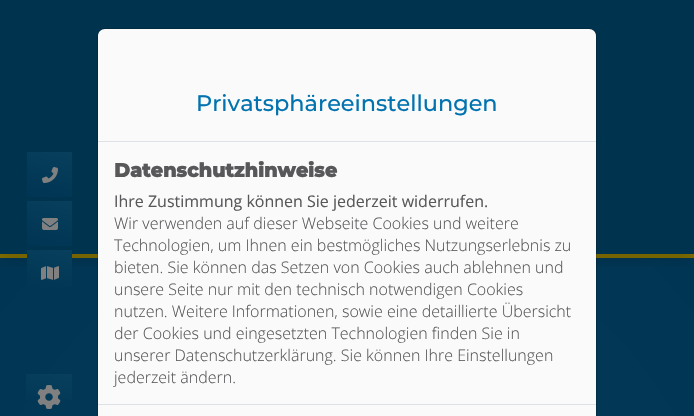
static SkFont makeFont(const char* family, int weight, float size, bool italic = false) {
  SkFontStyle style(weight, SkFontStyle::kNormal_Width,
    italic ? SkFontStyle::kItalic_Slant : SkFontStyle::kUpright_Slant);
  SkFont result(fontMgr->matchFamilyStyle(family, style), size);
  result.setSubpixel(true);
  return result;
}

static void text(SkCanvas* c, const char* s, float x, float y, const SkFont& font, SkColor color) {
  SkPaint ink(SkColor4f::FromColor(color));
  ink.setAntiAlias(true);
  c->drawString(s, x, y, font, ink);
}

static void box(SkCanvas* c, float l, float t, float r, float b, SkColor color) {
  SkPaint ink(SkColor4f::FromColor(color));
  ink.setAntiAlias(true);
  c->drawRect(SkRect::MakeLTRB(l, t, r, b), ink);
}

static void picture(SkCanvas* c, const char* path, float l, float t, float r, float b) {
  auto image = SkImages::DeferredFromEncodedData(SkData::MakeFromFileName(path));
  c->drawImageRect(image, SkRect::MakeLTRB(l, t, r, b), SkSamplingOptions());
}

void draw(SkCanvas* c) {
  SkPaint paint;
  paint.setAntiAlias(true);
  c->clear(0xffffffff);
  box(c, 0, 0, 694, 254, 0xff00344e);
  box(c, 0, 254, 694, 258, 0xff7f6c00);
  {
    const SkColor colors[] = {0xff073f5d, 0xff003553};
    const float stops[] = {0, 1};
    SkMatrix m = SkMatrix::Translate(347, 641).preScale(491, 542);
    paint.setShader(SkGradientShader::MakeRadial({0, 0}, 1, colors, stops, 2, SkTileMode::kClamp, 0, &m));
    paint.setAlpha(255);
  }
  c->drawRect(SkRect::MakeLTRB(0, 258, 694, 416), paint);
  c->save();
  c->clipRect(SkRect::MakeLTRB(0, 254, 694, 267));
  paint.setShader(nullptr);
  paint.setColor(0x1a000000);
  paint.setMaskFilter(SkMaskFilter::MakeBlur(kNormal_SkBlurStyle, 7.5f));
  c->drawRect(SkRect::MakeLTRB(3, 13, 691, 261), paint);
  paint.setMaskFilter(nullptr);
  c->restore();
  {
    const SkColor colors[] = {0xff073f5d, 0xff003553};
    const float stops[] = {0, 1};
    const SkPoint ends[] = {{57, 148}, {42, 201}};
    paint.setShader(SkGradientShader::MakeLinear(ends, colors, stops, 2, SkTileMode::kClamp));
    paint.setAlpha(255);
  }
  c->drawRect(SkRect::MakeLTRB(27, 152, 72, 197), paint);
  picture(c, "img_01.png", 42, 167, 58, 183);
  {
    const SkColor colors[] = {0xff073f5d, 0xff003553};
    const float stops[] = {0, 1};
    const SkPoint ends[] = {{57, 197}, {42, 250}};
    paint.setShader(SkGradientShader::MakeLinear(ends, colors, stops, 2, SkTileMode::kClamp));
    paint.setAlpha(255);
  }
  c->drawRect(SkRect::MakeLTRB(27, 201, 72, 246), paint);
  picture(c, "img_02.png", 42, 218, 58, 230);
  {
    const SkColor colors[] = {0xff073f5d, 0xff003553};
    const float stops[] = {0, 1};
    const SkPoint ends[] = {{57, 246}, {42, 299}};
    paint.setShader(SkGradientShader::MakeLinear(ends, colors, stops, 2, SkTileMode::kClamp));
    paint.setAlpha(255);
  }
  c->drawRect(SkRect::MakeLTRB(27, 250, 72, 287), paint);
  picture(c, "img_03.png", 41, 266, 59, 280);
  {
    const SkColor colors[] = {0xff073f5d, 0xff003553};
    const float stops[] = {0, 1};
    const SkPoint ends[] = {{56, 370}, {42, 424}};
    paint.setShader(SkGradientShader::MakeLinear(ends, colors, stops, 2, SkTileMode::kClamp));
    paint.setAlpha(255);
  }
  c->drawRect(SkRect::MakeLTRB(26, 374, 72, 400), paint);
  picture(c, "img_04.png", 37, 385, 61, 409);
  paint.setStyle(SkPaint::kStroke_Style);
  paint.setStrokeWidth(1);
  paint.setShader(nullptr);
  paint.setColor(0x2e000000);
  c->drawRoundRect(SkRect::MakeLTRB(97.5f, 28.5f, 596.5f, 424.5f), 7.5f, 7.5f, paint);
  paint.setStyle(SkPaint::kFill_Style);
  paint.setColor(0xfffafafa);
  c->drawPath(SkPathBuilder().moveTo(105, 29).lineTo(589, 29).cubicTo(593, 29, 596, 32, 596, 36).lineTo(596, 142).lineTo(98, 142).lineTo(98, 36).cubicTo(98, 32, 101, 29, 105, 29).close().detach(), paint);
  box(c, 98, 141, 596, 142, 0xffdee2e6);
  SkFont face1 = makeFont("Montserrat", 100, 22.4f);
  text(c, "Privatsphäreeinstellungen", 196, 111, face1, 0xff0373b0);
  box(c, 98, 142, 596, 404, 0xfffafafa);
  SkFont face2 = makeFont("Montserrat", 700, 19.25f);
  text(c, "Datenschutzhinweise", 114, 177, face2, 0xff58585b);
  SkFont face3 = makeFont("Open Sans", 400, 16);
  text(c, "Ihre Zustimmung können Sie jederzeit widerrufen.", 114, 207, face3, 0xff58585b);
  SkFont face4 = makeFont("Open Sans", 300, 16);
  text(c, "Wir verwenden auf dieser Webseite Cookies und weitere", 114, 229, face4, 0xff58585b);
  text(c, "Technologien, um Ihnen ein bestmögliches Nutzungserlebnis zu", 114, 251, face4, 0xff58585b);
  text(c, "bieten. Sie können das Setzen von Cookies auch ablehnen und", 114, 273, face4, 0xff58585b);
  text(c, "unsere Seite nur mit den technisch notwendigen Cookies", 114, 295, face4, 0xff58585b);
  text(c, "nutzen. Weitere Informationen, sowie eine detaillierte Übersicht", 114, 317, face4, 0xff58585b);
  text(c, "der Cookies und eingesetzten Technologien finden Sie in", 114, 339, face4, 0xff58585b);
  text(c, "unserer Datenschutzerklärung. Sie können Ihre Einstellungen", 114, 361, face4, 0xff58585b);
  text(c, "jederzeit ändern.", 114, 383, face4, 0xff58585b);
  box(c, 98, 405, 596, 416, 0xfffafafa);
  box(c, 98, 404, 596, 405, 0xffdee2e6);
}
